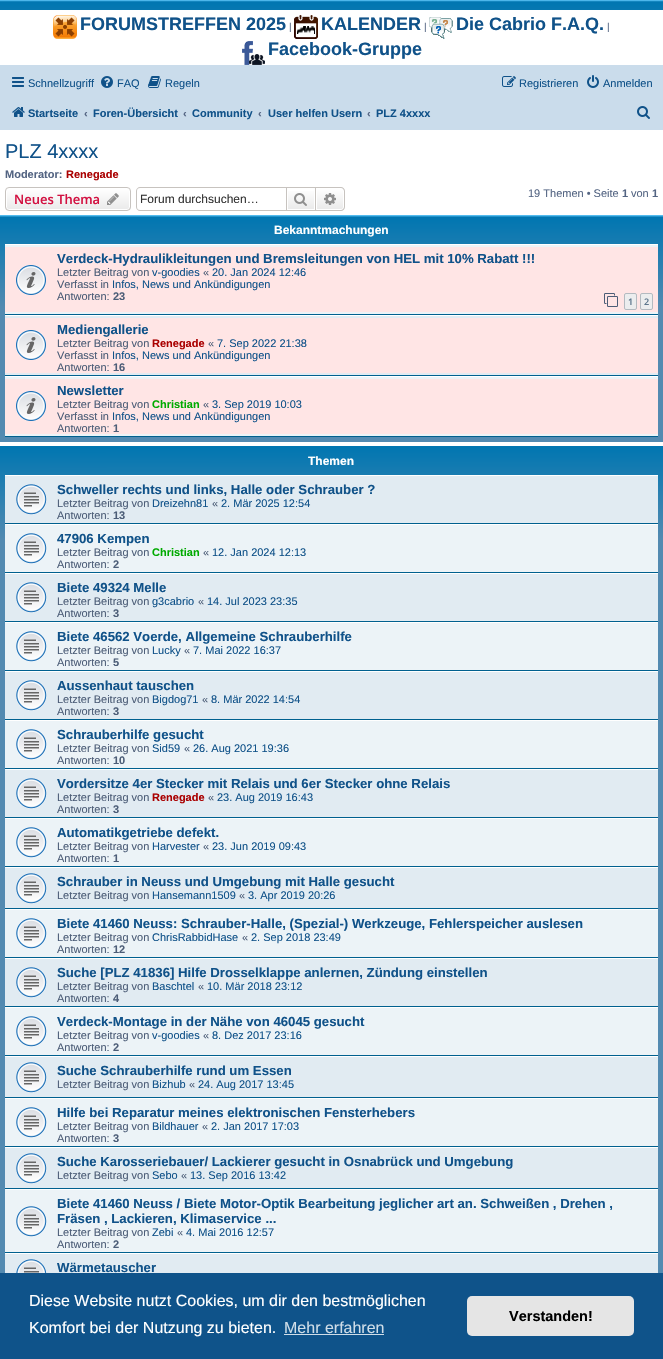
static SkFont makeFont(const char* family, int weight, float size, bool italic = false) {
  SkFontStyle style(weight, SkFontStyle::kNormal_Width,
    italic ? SkFontStyle::kItalic_Slant : SkFontStyle::kUpright_Slant);
  SkFont result(fontMgr->matchFamilyStyle(family, style), size);
  result.setSubpixel(true);
  return result;
}

static void text(SkCanvas* c, const char* s, float x, float y, const SkFont& font, SkColor color) {
  SkPaint ink(SkColor4f::FromColor(color));
  ink.setAntiAlias(true);
  c->drawString(s, x, y, font, ink);
}

static void box(SkCanvas* c, float l, float t, float r, float b, SkColor color) {
  SkPaint ink(SkColor4f::FromColor(color));
  ink.setAntiAlias(true);
  c->drawRect(SkRect::MakeLTRB(l, t, r, b), ink);
}

static void roundBox(SkCanvas* c, float l, float t, float r, float b, float radius, SkColor color) {
  SkPaint ink(SkColor4f::FromColor(color));
  ink.setAntiAlias(true);
  c->drawRoundRect(SkRect::MakeLTRB(l, t, r, b), radius, radius, ink);
}

static void picture(SkCanvas* c, const char* path, float l, float t, float r, float b) {
  auto image = SkImages::DeferredFromEncodedData(SkData::MakeFromFileName(path));
  c->drawImageRect(image, SkRect::MakeLTRB(l, t, r, b), SkSamplingOptions());
}

void draw(SkCanvas* c) {
  SkPaint paint;
  paint.setAntiAlias(true);
  c->clear(0xffffffff);
  {
    const SkColor colors[] = {0xff6aceff, 0xff0076b1, 0xff538ab1};
    const float stops[] = {0, 0.02f, 1};
    const SkPoint ends[] = {{332, 0}, {332, 92}};
    paint.setShader(SkGradientShader::MakeLinear(ends, colors, stops, 3, SkTileMode::kClamp));
    paint.setAlpha(255);
  }
  c->drawRect(SkRect::MakeLTRB(0, 0, 663, 10), paint);
  picture(c, "img_01.png", 53, 15, 77, 39);
  SkFont face1 = makeFont("Liberation Sans", 700, 18);
  text(c, "FORUMSTREFFEN 2025", 80, 30, face1, 0xff105289);
  SkFont face2 = makeFont("Liberation Sans", 400, 10);
  text(c, "|", 289, 30, face2, 0xff536482);
  picture(c, "img_02.png", 294, 15, 318, 39);
  text(c, "KALENDER", 321, 30, face1, 0xff105289);
  text(c, "|", 424, 30, face2, 0xff536482);
  picture(c, "img_03.png", 429, 17, 453, 39);
  text(c, "Die Cabrio F.A.Q.", 456, 30, face1, 0xff105289);
  text(c, "|", 607, 30, face2, 0xff536482);
  picture(c, "img_04.png", 242, 41, 265, 65);
  text(c, "Facebook-Gruppe", 268, 55, face1, 0xff105289);
  box(c, 0, 65, 663, 130, 0xffcadceb);
  picture(c, "img_05.png", 12, 77, 24, 87);
  SkFont face3 = makeFont("Liberation Sans", 400, 11);
  text(c, "Schnellzugriff", 28, 87, face3, 0xff105289);
  picture(c, "img_06.png", 101, 76, 113, 88);
  text(c, "FAQ", 117, 87, face3, 0xff105289);
  picture(c, "img_07.png", 148, 76, 161, 88);
  text(c, "Regeln", 165, 87, face3, 0xff105289);
  picture(c, "img_08.png", 502, 76, 516, 87);
  text(c, "Registrieren", 519, 87, face3, 0xff105289);
  picture(c, "img_09.png", 587, 75, 599, 88);
  text(c, "Anmelden", 603, 87, face3, 0xff105289);
  picture(c, "img_10.png", 12, 107, 25, 117);
  SkFont face4 = makeFont("Liberation Sans", 700, 11);
  text(c, "Startseite", 28, 117, face4, 0xff105289);
  text(c, "‹", 84, 117, face4, 0xff536482);
  text(c, "Foren-Übersicht", 93, 117, face4, 0xff105289);
  text(c, "‹", 183, 117, face4, 0xff536482);
  text(c, "Community", 192, 117, face4, 0xff105289);
  text(c, "‹", 258, 117, face4, 0xff536482);
  text(c, "User helfen Usern", 268, 117, face4, 0xff105289);
  text(c, "‹", 367, 117, face4, 0xff536482);
  text(c, "PLZ 4xxxx", 376, 117, face4, 0xff105289);
  picture(c, "img_11.png", 637, 106, 650, 119);
  SkFont face5 = makeFont("Liberation Sans", 400, 20);
  text(c, "PLZ 4xxxx", 5, 158, face5, 0xff105289);
  text(c, "Moderator:", 5, 178, face4, 0xff536482);
  text(c, "Renegade", 66, 178, face4, 0xffaa0000);
  c->save();
  c->clipPath(SkPathBuilder().moveTo(9, 187).lineTo(127, 187).cubicTo(129, 187, 131, 189, 131, 191).lineTo(131, 207).cubicTo(131, 209, 129, 211, 127, 211).lineTo(9, 211).cubicTo(7, 211, 5, 209, 5, 207).lineTo(5, 191).cubicTo(5, 189, 7, 187, 9, 187).close().detach(), true);
  {
    const SkColor colors[] = {0xffffffff, 0xffe9e9e9};
    const float stops[] = {0, 1};
    const SkPoint ends[] = {{68, 188}, {68, 210}};
    paint.setShader(SkGradientShader::MakeLinear(ends, colors, stops, 2, SkTileMode::kClamp));
    paint.setAlpha(255);
  }
  c->drawRect(SkRect::MakeLTRB(5, 188, 131, 210), paint);
  c->restore();
  paint.setStyle(SkPaint::kStroke_Style);
  paint.setStrokeWidth(1);
  paint.setShader(nullptr);
  paint.setColor(0xffffffff);
  c->drawRoundRect(SkRect::MakeLTRB(6.5f, 188.5f, 129.5f, 209.5f), 2.5f, 2.5f, paint);
  paint.setColor(0xffc7c3bf);
  c->drawRoundRect(SkRect::MakeLTRB(5.5f, 187.5f, 130.5f, 210.5f), 3.5f, 3.5f, paint);
  SkFont face6 = makeFont("Open Sans", 600, 13);
  text(c, "Neues Thema", 14, 204, face6, 0xffd31141);
  picture(c, "img_12.png", 107, 193, 119, 205);
  paint.setStyle(SkPaint::kFill_Style);
  c->drawPath(SkPathBuilder(SkPathFillType::kEvenOdd).moveTo(140, 187).lineTo(286, 187).lineTo(286, 211).lineTo(140, 211).cubicTo(138, 211, 136, 209, 136, 207).lineTo(136, 191).cubicTo(136, 189, 138, 187, 140, 187).close().moveTo(140, 188).lineTo(286, 188).lineTo(286, 210).lineTo(140, 210).cubicTo(138, 210, 137, 209, 137, 207).lineTo(137, 191).cubicTo(137, 189, 138, 188, 140, 188).close().detach(), paint);
  SkFont face7 = makeFont("Liberation Sans", 400, 12);
  text(c, "Forum durchsuchen…", 140, 203, face7, 0xff333333);
  {
    const SkColor colors[] = {0xffffffff, 0xffe9e9e9};
    const float stops[] = {0, 1};
    const SkPoint ends[] = {{301, 188}, {301, 210}};
    paint.setShader(SkGradientShader::MakeLinear(ends, colors, stops, 2, SkTileMode::kClamp));
    paint.setAlpha(255);
  }
  c->drawRect(SkRect::MakeLTRB(288, 191, 314, 209), paint);
  paint.setStyle(SkPaint::kStroke_Style);
  paint.setShader(nullptr);
  paint.setColor(0xffc7c3bf);
  c->drawRect(SkRect::MakeLTRB(286.5f, 187.5f, 315.5f, 210.5f), paint);
  picture(c, "img_13.png", 294, 193, 307, 206);
  paint.setStyle(SkPaint::kFill_Style);
  {
    const SkColor colors[] = {0xffffffff, 0xffe9e9e9};
    const float stops[] = {0, 1};
    const SkPoint ends[] = {{330, 188}, {330, 210}};
    paint.setShader(SkGradientShader::MakeLinear(ends, colors, stops, 2, SkTileMode::kClamp));
    paint.setAlpha(255);
  }
  c->drawPath(SkPathBuilder().moveTo(316.5f, 188.5f).lineTo(341, 188.5f).cubicTo(342.5f, 188.5f, 343.5f, 189.5f, 343.5f, 191).lineTo(343.5f, 207).cubicTo(343.5f, 208.5f, 342.5f, 209.5f, 341, 209.5f).lineTo(316.5f, 209.5f).close().detach(), paint);
  paint.setStyle(SkPaint::kStroke_Style);
  paint.setShader(nullptr);
  paint.setColor(0xffffffff);
  c->drawPath(SkPathBuilder().moveTo(316.5f, 188.5f).lineTo(341, 188.5f).cubicTo(342.5f, 188.5f, 343.5f, 189.5f, 343.5f, 191).lineTo(343.5f, 207).cubicTo(343.5f, 208.5f, 342.5f, 209.5f, 341, 209.5f).lineTo(316.5f, 209.5f).close().detach(), paint);
  paint.setStyle(SkPaint::kFill_Style);
  paint.setColor(0xffc7c3bf);
  c->drawPath(SkPathBuilder(SkPathFillType::kEvenOdd).moveTo(316, 187).lineTo(341, 187).cubicTo(343, 187, 345, 189, 345, 191).lineTo(345, 207).cubicTo(345, 209, 343, 211, 341, 211).lineTo(316, 211).close().moveTo(316, 188).lineTo(341, 188).cubicTo(342.5f, 188, 344, 189.5f, 344, 191).lineTo(344, 207).cubicTo(344, 208.5f, 342.5f, 210, 341, 210).lineTo(316, 210).close().detach(), paint);
  picture(c, "img_14.png", 324, 193, 336, 205);
  text(c, "19 Themen • Seite", 528, 197, face3, 0xff536482);
  text(c, "1", 622, 197, face4, 0xff536482);
  text(c, "von", 631, 197, face3, 0xff536482);
  text(c, "1", 652, 197, face4, 0xff536482);
  {
    const SkColor colors[] = {0xff6aceff, 0xff0076b1, 0xff538ab1, 0xff538ab1};
    const float stops[] = {0, 0.01f, 0.41f, 1};
    const SkPoint ends[] = {{332, 215}, {332, 442}};
    paint.setShader(SkGradientShader::MakeLinear(ends, colors, stops, 4, SkTileMode::kClamp));
    paint.setAlpha(255);
  }
  c->drawRect(SkRect::MakeLTRB(0, 215, 663, 442), paint);
  SkFont face8 = makeFont("Liberation Sans", 700, 12);
  text(c, "Bekanntmachungen", 274, 234, face8, 0xffffffff);
  box(c, 5, 245, 658, 314, 0xffecf3f7);
  box(c, 5, 244, 658, 245, 0xffffffff);
  box(c, 5, 314, 658, 315, 0xff00608f);
  box(c, 5, 247, 658, 312, 0xffffe5e5);
  picture(c, "img_15.png", 16, 265, 46, 295);
  SkFont face9 = makeFont("Liberation Sans", 700, 13.2f);
  text(c, "Verdeck-Hydraulikleitungen und Bremsleitungen von HEL mit 10% Rabatt !!!", 57, 263, face9, 0xff105289);
  text(c, "Letzter Beitrag von", 57, 276, face3, 0xff4c5d77);
  text(c, "v-goodies", 152, 276, face3, 0xff105289);
  text(c, "«", 203, 276, face3, 0xff4c5d77);
  text(c, "20. Jan 2024 12:46", 212, 276, face3, 0xff105289);
  text(c, "Verfasst in", 57, 288, face3, 0xff4c5d77);
  text(c, "Infos, News und Ankündigungen", 112, 288, face3, 0xff105289);
  text(c, "Antworten:", 57, 300, face3, 0xff4c5d77);
  text(c, "23", 113, 300, face4, 0xff4c5d77);
  picture(c, "img_16.png", 604, 293, 618, 307);
  paint.setShader(nullptr);
  paint.setColor(0xffecedee);
  c->drawRoundRect(SkRect::MakeLTRB(624.5f, 293.5f, 636.5f, 309.5f), 1.5f, 1.5f, paint);
  paint.setStyle(SkPaint::kStroke_Style);
  paint.setColor(0xffb4bac0);
  c->drawRoundRect(SkRect::MakeLTRB(624.5f, 293.5f, 636.5f, 309.5f), 1.5f, 1.5f, paint);
  SkFont face10 = makeFont("Open Sans", 600, 9);
  text(c, "1", 628, 305, face10, 0xff5c758c);
  paint.setStyle(SkPaint::kFill_Style);
  paint.setColor(0xffecedee);
  c->drawRoundRect(SkRect::MakeLTRB(640.5f, 293.5f, 652.5f, 309.5f), 1.5f, 1.5f, paint);
  paint.setStyle(SkPaint::kStroke_Style);
  paint.setColor(0xffb4bac0);
  c->drawRoundRect(SkRect::MakeLTRB(640.5f, 293.5f, 652.5f, 309.5f), 1.5f, 1.5f, paint);
  text(c, "2", 644, 305, face10, 0xff5c758c);
  box(c, 5, 316, 658, 375, 0xffe1ebf2);
  box(c, 5, 315, 658, 316, 0xffffffff);
  box(c, 5, 375, 658, 376, 0xff00608f);
  box(c, 5, 318, 658, 373, 0xffffe5e5);
  picture(c, "img_15.png", 16, 330, 46, 360);
  text(c, "Mediengallerie", 57, 334, face9, 0xff105289);
  text(c, "Letzter Beitrag von", 57, 347, face3, 0xff4c5d77);
  text(c, "Renegade", 152, 347, face4, 0xffaa0000);
  text(c, "«", 208, 347, face3, 0xff4c5d77);
  text(c, "7. Sep 2022 21:38", 217, 347, face3, 0xff105289);
  text(c, "Verfasst in", 57, 359, face3, 0xff4c5d77);
  text(c, "Infos, News und Ankündigungen", 112, 359, face3, 0xff105289);
  text(c, "Antworten:", 57, 371, face3, 0xff4c5d77);
  text(c, "16", 113, 371, face4, 0xff4c5d77);
  box(c, 5, 377, 658, 436, 0xffecf3f7);
  box(c, 5, 376, 658, 377, 0xffffffff);
  box(c, 5, 436, 658, 437, 0xff00608f);
  box(c, 5, 379, 658, 434, 0xffffe5e5);
  picture(c, "img_15.png", 16, 391, 46, 421);
  text(c, "Newsletter", 57, 395, face9, 0xff105289);
  text(c, "Letzter Beitrag von", 57, 408, face3, 0xff4c5d77);
  text(c, "Christian", 152, 408, face4, 0xff00aa00);
  text(c, "«", 203, 408, face3, 0xff4c5d77);
  text(c, "3. Sep 2019 10:03", 212, 408, face3, 0xff105289);
  text(c, "Verfasst in", 57, 420, face3, 0xff4c5d77);
  text(c, "Infos, News und Ankündigungen", 112, 420, face3, 0xff105289);
  text(c, "Antworten:", 57, 432, face3, 0xff4c5d77);
  text(c, "1", 113, 432, face4, 0xff4c5d77);
  paint.setStyle(SkPaint::kFill_Style);
  {
    const SkColor colors[] = {0xff6aceff, 0xff0076b1, 0xff538ab1, 0xff538ab1};
    const float stops[] = {0, 0, 0.1f, 1};
    const SkPoint ends[] = {{331, 446}, {332, 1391}};
    paint.setShader(SkGradientShader::MakeLinear(ends, colors, stops, 4, SkTileMode::kClamp));
    paint.setAlpha(255);
  }
  c->drawRect(SkRect::MakeLTRB(0, 446, 663, 1273), paint);
  text(c, "Themen", 308, 465, face8, 0xffffffff);
  box(c, 5, 476, 658, 523, 0xffe1ebf2);
  box(c, 5, 475, 658, 476, 0xffffffff);
  box(c, 5, 523, 658, 524, 0xff00608f);
  picture(c, "img_17.png", 16, 484, 47, 515);
  text(c, "Schweller rechts und links, Halle oder Schrauber ?", 57, 494, face9, 0xff105289);
  text(c, "Letzter Beitrag von", 57, 507, face3, 0xff4c5d77);
  text(c, "Dreizehn81", 152, 507, face3, 0xff105289);
  text(c, "«", 212, 507, face3, 0xff4c5d77);
  text(c, "2. Mär 2025 12:54", 221, 507, face3, 0xff105289);
  text(c, "Antworten:", 57, 519, face3, 0xff4c5d77);
  text(c, "13", 113, 519, face4, 0xff4c5d77);
  box(c, 5, 525, 658, 572, 0xffecf3f7);
  box(c, 5, 524, 658, 525, 0xffffffff);
  box(c, 5, 572, 658, 573, 0xff00608f);
  picture(c, "img_18.png", 16, 533, 47, 564);
  text(c, "47906 Kempen", 57, 543, face9, 0xff105289);
  text(c, "Letzter Beitrag von", 57, 556, face3, 0xff4c5d77);
  text(c, "Christian", 152, 556, face4, 0xff00aa00);
  text(c, "«", 203, 556, face3, 0xff4c5d77);
  text(c, "12. Jan 2024 12:13", 212, 556, face3, 0xff105289);
  text(c, "Antworten:", 57, 568, face3, 0xff4c5d77);
  text(c, "2", 113, 568, face4, 0xff4c5d77);
  box(c, 5, 574, 658, 621, 0xffe1ebf2);
  box(c, 5, 573, 658, 574, 0xffffffff);
  box(c, 5, 621, 658, 622, 0xff00608f);
  picture(c, "img_17.png", 16, 582, 47, 613);
  text(c, "Biete 49324 Melle", 57, 592, face9, 0xff105289);
  text(c, "Letzter Beitrag von", 57, 605, face3, 0xff4c5d77);
  text(c, "g3cabrio", 152, 605, face3, 0xff105289);
  text(c, "«", 198, 605, face3, 0xff4c5d77);
  text(c, "14. Jul 2023 23:35", 207, 605, face3, 0xff105289);
  text(c, "Antworten:", 57, 617, face3, 0xff4c5d77);
  text(c, "3", 113, 617, face4, 0xff4c5d77);
  box(c, 5, 623, 658, 670, 0xffecf3f7);
  box(c, 5, 622, 658, 623, 0xffffffff);
  box(c, 5, 670, 658, 671, 0xff00608f);
  picture(c, "img_18.png", 16, 631, 47, 662);
  text(c, "Biete 46562 Voerde, Allgemeine Schrauberhilfe", 57, 641, face9, 0xff105289);
  text(c, "Letzter Beitrag von", 57, 654, face3, 0xff4c5d77);
  text(c, "Lucky", 152, 654, face3, 0xff105289);
  text(c, "«", 184, 654, face3, 0xff4c5d77);
  text(c, "7. Mai 2022 16:37", 193, 654, face3, 0xff105289);
  text(c, "Antworten:", 57, 666, face3, 0xff4c5d77);
  text(c, "5", 113, 666, face4, 0xff4c5d77);
  box(c, 5, 672, 658, 719, 0xffe1ebf2);
  box(c, 5, 671, 658, 672, 0xffffffff);
  box(c, 5, 719, 658, 720, 0xff00608f);
  picture(c, "img_17.png", 16, 680, 47, 711);
  text(c, "Aussenhaut tauschen", 57, 690, face9, 0xff105289);
  text(c, "Letzter Beitrag von", 57, 703, face3, 0xff4c5d77);
  text(c, "Bigdog71", 152, 703, face3, 0xff105289);
  text(c, "«", 202, 703, face3, 0xff4c5d77);
  text(c, "8. Mär 2022 14:54", 211, 703, face3, 0xff105289);
  text(c, "Antworten:", 57, 715, face3, 0xff4c5d77);
  text(c, "3", 113, 715, face4, 0xff4c5d77);
  box(c, 5, 721, 658, 768, 0xffecf3f7);
  box(c, 5, 720, 658, 721, 0xffffffff);
  box(c, 5, 768, 658, 769, 0xff00608f);
  picture(c, "img_18.png", 16, 729, 47, 760);
  text(c, "Schrauberhilfe gesucht", 57, 739, face9, 0xff105289);
  text(c, "Letzter Beitrag von", 57, 752, face3, 0xff4c5d77);
  text(c, "Sid59", 152, 752, face3, 0xff105289);
  text(c, "«", 184, 752, face3, 0xff4c5d77);
  text(c, "26. Aug 2021 19:36", 193, 752, face3, 0xff105289);
  text(c, "Antworten:", 57, 764, face3, 0xff4c5d77);
  text(c, "10", 113, 764, face4, 0xff4c5d77);
  box(c, 5, 770, 658, 817, 0xffe1ebf2);
  box(c, 5, 769, 658, 770, 0xffffffff);
  box(c, 5, 817, 658, 818, 0xff00608f);
  picture(c, "img_17.png", 16, 778, 47, 809);
  text(c, "Vordersitze 4er Stecker mit Relais und 6er Stecker ohne Relais", 57, 788, face9, 0xff105289);
  text(c, "Letzter Beitrag von", 57, 801, face3, 0xff4c5d77);
  text(c, "Renegade", 152, 801, face4, 0xffaa0000);
  text(c, "«", 208, 801, face3, 0xff4c5d77);
  text(c, "23. Aug 2019 16:43", 217, 801, face3, 0xff105289);
  text(c, "Antworten:", 57, 813, face3, 0xff4c5d77);
  text(c, "3", 113, 813, face4, 0xff4c5d77);
  box(c, 5, 819, 658, 866, 0xffecf3f7);
  box(c, 5, 818, 658, 819, 0xffffffff);
  box(c, 5, 866, 658, 867, 0xff00608f);
  picture(c, "img_18.png", 16, 827, 47, 858);
  text(c, "Automatikgetriebe defekt.", 57, 837, face9, 0xff105289);
  text(c, "Letzter Beitrag von", 57, 850, face3, 0xff4c5d77);
  text(c, "Harvester", 152, 850, face3, 0xff105289);
  text(c, "«", 203, 850, face3, 0xff4c5d77);
  text(c, "23. Jun 2019 09:43", 212, 850, face3, 0xff105289);
  text(c, "Antworten:", 57, 862, face3, 0xff4c5d77);
  text(c, "1", 113, 862, face4, 0xff4c5d77);
  box(c, 5, 868, 658, 908, 0xffe1ebf2);
  box(c, 5, 867, 658, 868, 0xffffffff);
  box(c, 5, 908, 658, 909, 0xff00608f);
  picture(c, "img_17.png", 16, 873, 47, 904);
  text(c, "Schrauber in Neuss und Umgebung mit Halle gesucht", 57, 886, face9, 0xff105289);
  text(c, "Letzter Beitrag von", 57, 899, face3, 0xff4c5d77);
  text(c, "Hansemann1509", 152, 899, face3, 0xff105289);
  text(c, "«", 239, 899, face3, 0xff4c5d77);
  text(c, "3. Apr 2019 20:26", 248, 899, face3, 0xff105289);
  box(c, 5, 910, 658, 957, 0xffecf3f7);
  box(c, 5, 909, 658, 910, 0xffffffff);
  box(c, 5, 957, 658, 958, 0xff00608f);
  picture(c, "img_18.png", 16, 918, 47, 949);
  text(c, "Biete 41460 Neuss: Schrauber-Halle, (Spezial-) Werkzeuge, Fehlerspeicher auslesen", 57, 928, face9, 0xff105289);
  text(c, "Letzter Beitrag von", 57, 941, face3, 0xff4c5d77);
  text(c, "ChrisRabbidHase", 152, 941, face3, 0xff105289);
  text(c, "«", 242, 941, face3, 0xff4c5d77);
  text(c, "2. Sep 2018 23:49", 251, 941, face3, 0xff105289);
  text(c, "Antworten:", 57, 953, face3, 0xff4c5d77);
  text(c, "12", 113, 953, face4, 0xff4c5d77);
  box(c, 5, 959, 658, 1006, 0xffe1ebf2);
  box(c, 5, 958, 658, 959, 0xffffffff);
  box(c, 5, 1006, 658, 1007, 0xff00608f);
  picture(c, "img_17.png", 16, 967, 47, 998);
  text(c, "Suche [PLZ 41836] Hilfe Drosselklappe anlernen, Zündung einstellen", 57, 977, face9, 0xff105289);
  text(c, "Letzter Beitrag von", 57, 990, face3, 0xff4c5d77);
  text(c, "Baschtel", 152, 990, face3, 0xff105289);
  text(c, "«", 198, 990, face3, 0xff4c5d77);
  text(c, "10. Mär 2018 23:12", 207, 990, face3, 0xff105289);
  text(c, "Antworten:", 57, 1002, face3, 0xff4c5d77);
  text(c, "4", 113, 1002, face4, 0xff4c5d77);
  box(c, 5, 1008, 658, 1055, 0xffecf3f7);
  box(c, 5, 1007, 658, 1008, 0xffffffff);
  box(c, 5, 1055, 658, 1056, 0xff00608f);
  picture(c, "img_18.png", 16, 1016, 47, 1047);
  text(c, "Verdeck-Montage in der Nähe von 46045 gesucht", 57, 1026, face9, 0xff105289);
  text(c, "Letzter Beitrag von", 57, 1039, face3, 0xff4c5d77);
  text(c, "v-goodies", 152, 1039, face3, 0xff105289);
  text(c, "«", 203, 1039, face3, 0xff4c5d77);
  text(c, "8. Dez 2017 23:16", 212, 1039, face3, 0xff105289);
  text(c, "Antworten:", 57, 1051, face3, 0xff4c5d77);
  text(c, "2", 113, 1051, face4, 0xff4c5d77);
  box(c, 5, 1057, 658, 1097, 0xffe1ebf2);
  box(c, 5, 1056, 658, 1057, 0xffffffff);
  box(c, 5, 1097, 658, 1098, 0xff00608f);
  picture(c, "img_17.png", 16, 1062, 47, 1093);
  text(c, "Suche Schrauberhilfe rund um Essen", 57, 1075, face9, 0xff105289);
  text(c, "Letzter Beitrag von", 57, 1088, face3, 0xff4c5d77);
  text(c, "Bizhub", 152, 1088, face3, 0xff105289);
  text(c, "«", 189, 1088, face3, 0xff4c5d77);
  text(c, "24. Aug 2017 13:45", 198, 1088, face3, 0xff105289);
  box(c, 5, 1099, 658, 1146, 0xffecf3f7);
  box(c, 5, 1098, 658, 1099, 0xffffffff);
  box(c, 5, 1146, 658, 1147, 0xff00608f);
  picture(c, "img_18.png", 16, 1107, 47, 1138);
  text(c, "Hilfe bei Reparatur meines elektronischen Fensterhebers", 57, 1117, face9, 0xff105289);
  text(c, "Letzter Beitrag von", 57, 1130, face3, 0xff4c5d77);
  text(c, "Bildhauer", 152, 1130, face3, 0xff105289);
  text(c, "«", 202, 1130, face3, 0xff4c5d77);
  text(c, "2. Jan 2017 17:03", 211, 1130, face3, 0xff105289);
  text(c, "Antworten:", 57, 1142, face3, 0xff4c5d77);
  text(c, "3", 113, 1142, face4, 0xff4c5d77);
  box(c, 5, 1148, 658, 1188, 0xffe1ebf2);
  box(c, 5, 1147, 658, 1148, 0xffffffff);
  box(c, 5, 1188, 658, 1189, 0xff00608f);
  picture(c, "img_17.png", 16, 1153, 47, 1184);
  text(c, "Suche Karosseriebauer/ Lackierer gesucht in Osnabrück und Umgebung", 57, 1166, face9, 0xff105289);
  text(c, "Letzter Beitrag von", 57, 1179, face3, 0xff4c5d77);
  text(c, "Sebo", 152, 1179, face3, 0xff105289);
  text(c, "«", 181, 1179, face3, 0xff4c5d77);
  text(c, "13. Sep 2016 13:42", 190, 1179, face3, 0xff105289);
  box(c, 5, 1190, 658, 1252, 0xffecf3f7);
  box(c, 5, 1189, 658, 1190, 0xffffffff);
  box(c, 5, 1252, 658, 1253, 0xff00608f);
  picture(c, "img_18.png", 16, 1206, 47, 1237);
  text(c, "Biete 41460 Neuss / Biete Motor-Optik Bearbeitung jeglicher art an. Schweißen , Drehen ,", 57, 1208, face9, 0xff105289);
  text(c, "Fräsen , Lackieren, Klimaservice ...", 57, 1223, face9, 0xff105289);
  text(c, "Letzter Beitrag von", 57, 1236, face3, 0xff4c5d77);
  text(c, "Zebi", 152, 1236, face3, 0xff105289);
  text(c, "«", 177, 1236, face3, 0xff4c5d77);
  text(c, "4. Mai 2016 12:57", 186, 1236, face3, 0xff105289);
  text(c, "Antworten:", 57, 1248, face3, 0xff4c5d77);
  text(c, "2", 113, 1248, face4, 0xff4c5d77);
  box(c, 5, 1254, 658, 1273, 0xffe1ebf2);
  box(c, 5, 1253, 658, 1254, 0xffffffff);
  picture(c, "img_19.png", 16, 1259, 47, 1273);
  text(c, "Wärmetauscher", 57, 1272, face9, 0xff105289);
  box(c, 0, 1273, 663, 1359, 0xff0f538a);
  SkFont face11 = makeFont("Liberation Sans", 400, 16);
  text(c, "Diese Website nutzt Cookies, um dir den bestmöglichen", 29, 1306, face11, 0xffffffff);
  text(c, "Komfort bei der Nutzung zu bieten.", 29, 1333, face11, 0xffffffff);
  text(c, "Mehr erfahren", 284, 1333, face11, 0xffcfdde8);
  box(c, 284, 1334, 384, 1335, 0xffcfdde8);
  roundBox(c, 467, 1296, 634, 1336, 5, 0xffe5e5e5);
  SkFont face12 = makeFont("Liberation Sans", 700, 14.5f);
  text(c, "Verstanden!", 509, 1321, face12, 0xff000000);
}
